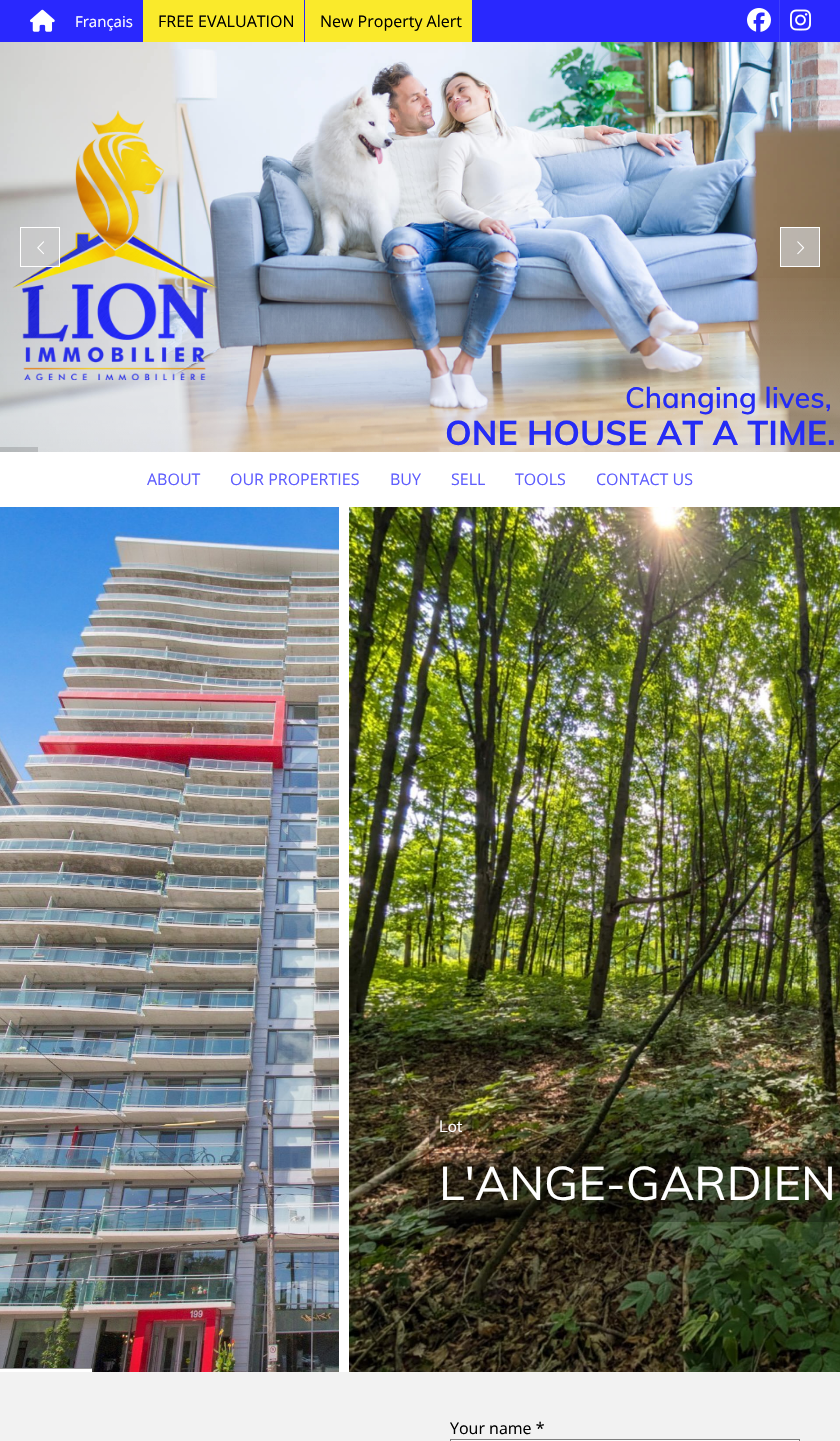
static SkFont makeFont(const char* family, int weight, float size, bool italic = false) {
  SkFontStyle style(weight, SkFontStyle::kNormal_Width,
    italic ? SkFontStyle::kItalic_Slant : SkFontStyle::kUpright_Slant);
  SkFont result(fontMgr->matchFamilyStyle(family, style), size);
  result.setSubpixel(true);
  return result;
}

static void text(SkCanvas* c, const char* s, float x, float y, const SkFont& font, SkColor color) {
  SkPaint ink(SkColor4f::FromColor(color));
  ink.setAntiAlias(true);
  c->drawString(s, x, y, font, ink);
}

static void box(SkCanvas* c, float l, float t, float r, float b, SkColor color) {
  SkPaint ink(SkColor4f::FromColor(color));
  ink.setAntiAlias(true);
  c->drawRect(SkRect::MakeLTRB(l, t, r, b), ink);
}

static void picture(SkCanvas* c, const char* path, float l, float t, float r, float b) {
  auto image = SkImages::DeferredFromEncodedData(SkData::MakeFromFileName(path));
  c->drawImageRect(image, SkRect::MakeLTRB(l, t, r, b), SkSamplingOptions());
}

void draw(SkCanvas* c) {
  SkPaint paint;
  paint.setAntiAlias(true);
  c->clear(0xffffffff);
  box(c, 0, 0, 840, 42, 0xff2928fe);
  picture(c, "img_01.png", 30, 9, 55, 32);
  SkFont face1 = makeFont("Open Sans", 400, 15);
  text(c, "Français", 75, 27, face1, 0xffffffff);
  box(c, 143, 0, 304, 42, 0xfffaea2b);
  SkFont face2 = makeFont("Open Sans", 400, 16);
  text(c, "FREE EVALUATION", 158, 27, face2, 0xff000000);
  box(c, 305, 0, 472, 42, 0xfffaea2b);
  text(c, "New Property Alert", 320, 27, face2, 0xff000000);
  box(c, 779, 0, 780, 42, 0xff3e3efe);
  picture(c, "img_02.png", 747, 8, 771, 32);
  picture(c, "img_03.png", 790, 9, 811, 31);
  picture(c, "img_06.png", 0, 42, 840, 452);
  picture(c, "img_08.png", 0, 278, 840, 452);
  picture(c, "img_07.png", 12, 110, 218, 381);
  paint.setColor(0xbfc9c9c9);
  c->drawRect(SkRect::MakeLTRB(20.5f, 227.5f, 59.5f, 266.5f), paint);
  paint.setStyle(SkPaint::kStroke_Style);
  paint.setStrokeWidth(1);
  paint.setColor(0xffffffff);
  c->drawRect(SkRect::MakeLTRB(20.5f, 227.5f, 59.5f, 266.5f), paint);
  picture(c, "img_04.png", 37, 241, 44, 255);
  paint.setStyle(SkPaint::kFill_Style);
  paint.setColor(0xbfc9c9c9);
  c->drawRect(SkRect::MakeLTRB(780.5f, 227.5f, 819.5f, 266.5f), paint);
  paint.setStyle(SkPaint::kStroke_Style);
  paint.setColor(0xffffffff);
  c->drawRect(SkRect::MakeLTRB(780.5f, 227.5f, 819.5f, 266.5f), paint);
  picture(c, "img_05.png", 797, 241, 805, 255);
  SkFont face3 = makeFont("Muli", 600, 29);
  text(c, "Changing lives,", 625, 408, face3, 0xff252bf5);
  SkFont face4 = makeFont("Muli", 700, 34);
  text(c, "ONE HOUSE AT A TIME.", 445, 445, face4, 0xff252bf5);
  box(c, 0, 447, 38, 452, 0x26000000);
  text(c, "ABOUT", 147, 485, face2, 0xff5f5efe);
  text(c, "OUR PROPERTIES", 230, 485, face2, 0xff5f5efe);
  text(c, "BUY", 390, 485, face2, 0xff5f5efe);
  text(c, "SELL", 451, 485, face2, 0xff5f5efe);
  text(c, "TOOLS", 515, 485, face2, 0xff5f5efe);
  text(c, "CONTACT US", 596, 485, face2, 0xff5f5efe);
  picture(c, "img_09.png", 0, 507, 339, 1372);
  picture(c, "img_10.png", 349, 507, 840, 1372);
  box(c, 429, 1115, 472, 1147, 0x40000000);
  SkFont face5 = makeFont("Muli", 400, 16);
  text(c, "Lot", 439, 1132, face5, 0xffffffff);
  box(c, 429, 1153, 840, 1222, 0x40000000);
  SkFont face6 = makeFont("Muli", 400, 46.75f);
  text(c, "L'ANGE-GARDIEN", 439, 1200, face6, 0xffffffff);
  box(c, 0, 1369, 92, 1372, 0xffffffff);
  box(c, 0, 1368, 92, 1369, 0xff969696);
  box(c, 0, 1372, 840, 1441, 0xfff2f2f2);
  text(c, "Your name *", 450, 1434, face2, 0xff000000);
  paint.setStyle(SkPaint::kFill_Style);
  paint.setColor(0xfffcfcfc);
  c->drawRect(SkRect::MakeLTRB(450.5f, 1439.5f, 799.5f, 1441.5f), paint);
  paint.setStyle(SkPaint::kStroke_Style);
  paint.setColor(0xff7e7e7e);
  c->drawRect(SkRect::MakeLTRB(450.5f, 1439.5f, 799.5f, 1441.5f), paint);
}
